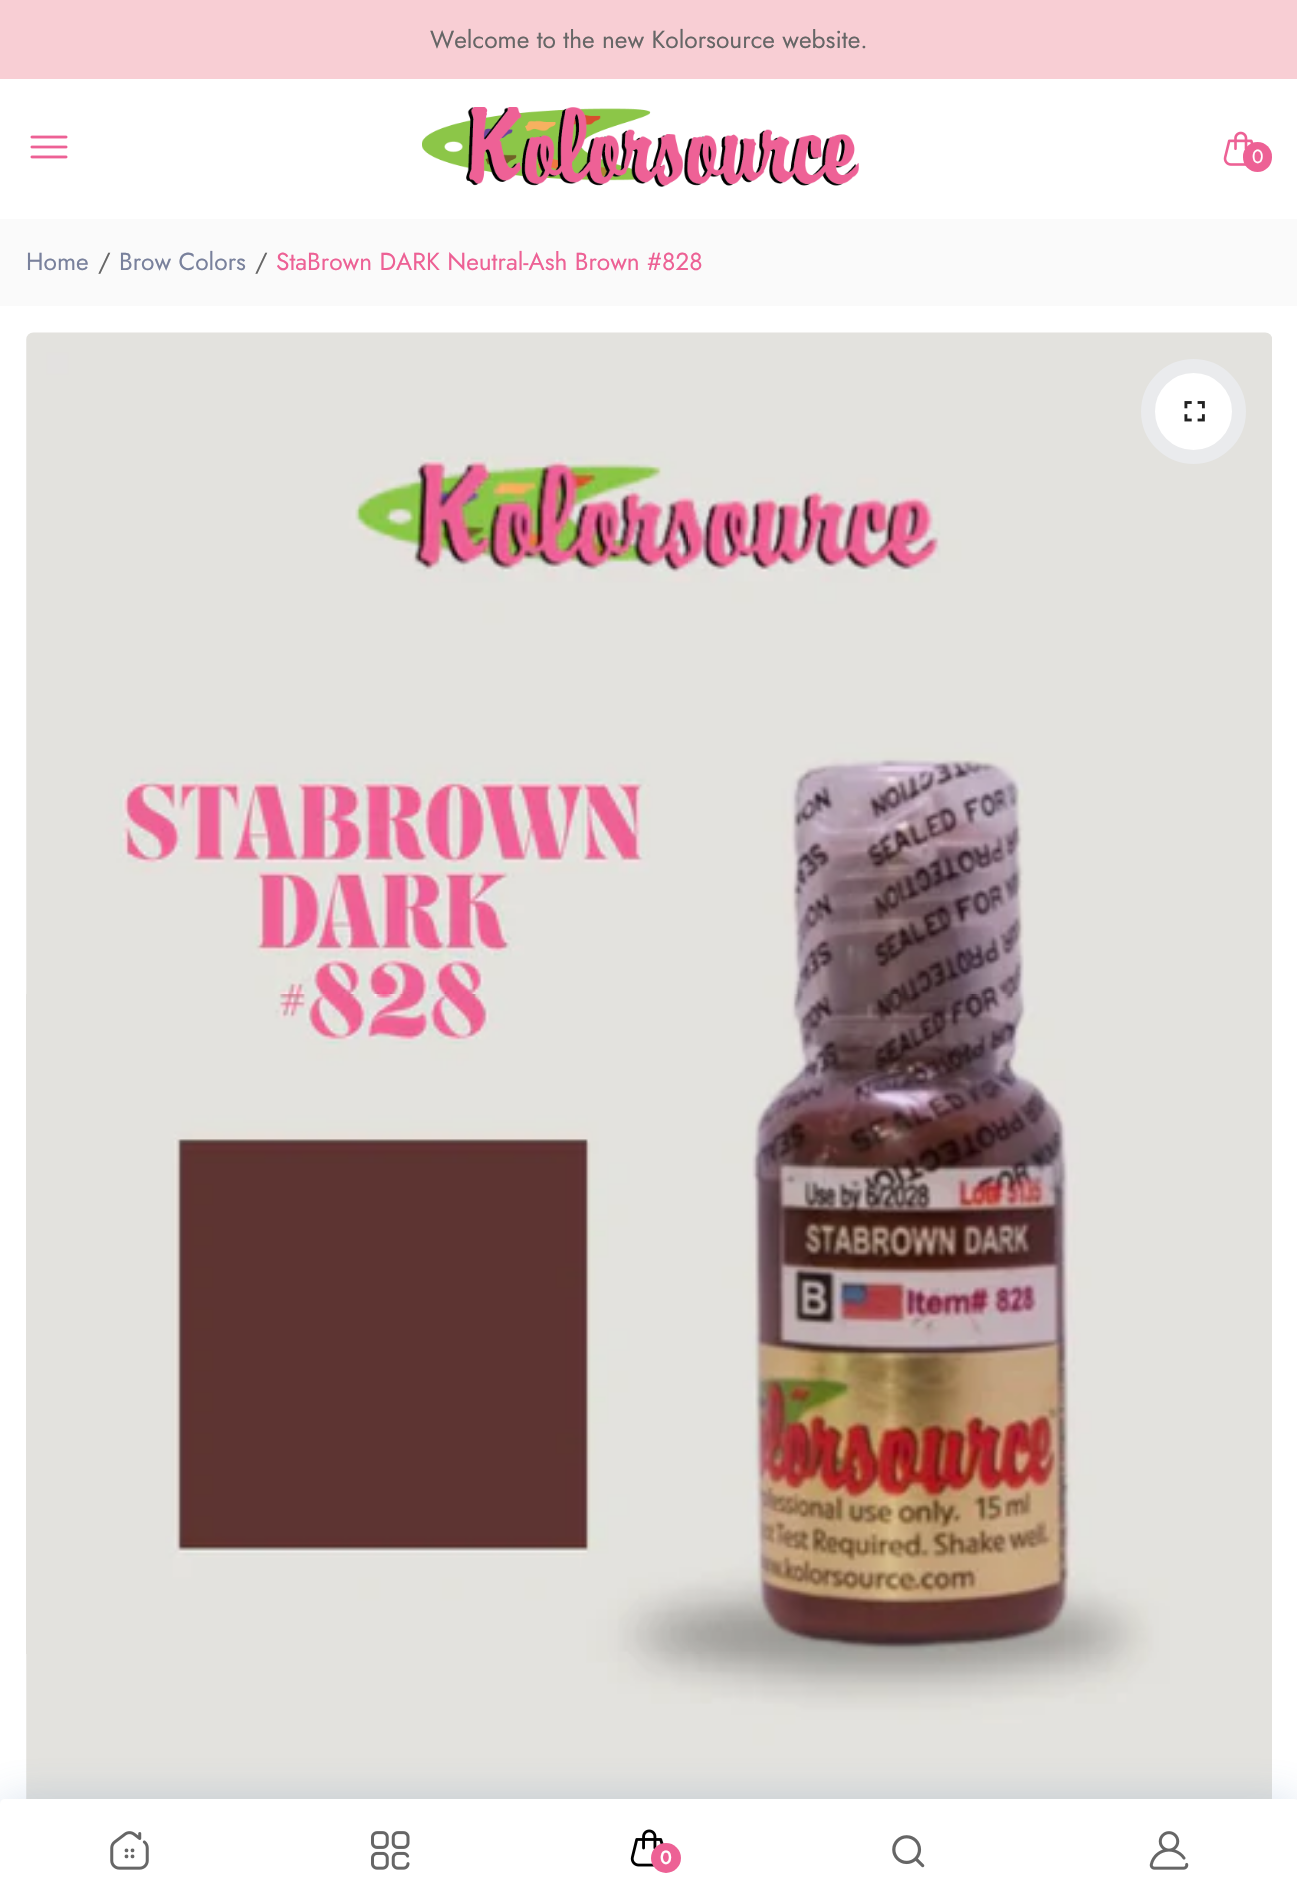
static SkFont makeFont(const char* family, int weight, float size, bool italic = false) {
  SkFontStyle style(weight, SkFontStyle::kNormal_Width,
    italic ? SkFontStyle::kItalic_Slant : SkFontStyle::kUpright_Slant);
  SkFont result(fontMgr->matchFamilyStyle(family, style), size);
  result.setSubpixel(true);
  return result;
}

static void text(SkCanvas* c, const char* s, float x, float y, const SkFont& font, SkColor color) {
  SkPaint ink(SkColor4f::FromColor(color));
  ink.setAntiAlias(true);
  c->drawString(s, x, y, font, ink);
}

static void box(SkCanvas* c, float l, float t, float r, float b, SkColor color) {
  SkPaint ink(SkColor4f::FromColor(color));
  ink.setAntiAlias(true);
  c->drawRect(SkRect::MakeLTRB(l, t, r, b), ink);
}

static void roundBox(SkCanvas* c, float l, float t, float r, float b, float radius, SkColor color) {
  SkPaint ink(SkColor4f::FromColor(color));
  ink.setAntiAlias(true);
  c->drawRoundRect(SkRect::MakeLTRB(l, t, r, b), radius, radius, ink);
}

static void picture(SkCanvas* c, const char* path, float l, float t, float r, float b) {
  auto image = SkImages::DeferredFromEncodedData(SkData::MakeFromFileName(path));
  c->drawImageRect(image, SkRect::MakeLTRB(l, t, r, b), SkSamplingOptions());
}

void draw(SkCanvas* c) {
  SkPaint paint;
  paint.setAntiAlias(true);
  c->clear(0xffffffff);
  box(c, 0, 0, 1297, 79, 0xfff8ced4);
  SkFont face1 = makeFont("Jost", 400, 24.5f);
  text(c, "Welcome to the new Kolorsource website.", 430, 48, face1, 0xff666666);
  picture(c, "img_01.png", 30, 135, 68, 159);
  picture(c, "img_02.png", 422, 107, 859, 187);
  picture(c, "img_03.png", 1223, 131, 1254, 166);
  roundBox(c, 1243, 142, 1272, 172, 14.5f, 0xffed6195);
  SkFont face2 = makeFont("Jost", 400, 19);
  text(c, "0", 1252, 163, face2, 0xffffffff);
  box(c, 0, 219, 1297, 306, 0xfffafafa);
  text(c, "Home", 26, 270, face1, 0xff79819c);
  text(c, "/", 98, 270, face1, 0xff666666);
  text(c, "Brow Colors", 119, 270, face1, 0xff79819c);
  text(c, "/", 255, 270, face1, 0xff666666);
  text(c, "StaBrown DARK Neutral-Ash Brown #828", 276, 270, face1, 0xffed6195);
  picture(c, "img_04.png", 26, 332, 1272, 1799);
  paint.setColor(0xffffffff);
  c->drawCircle(1193.5f, 411.5f, 45.5f, paint);
  paint.setStyle(SkPaint::kStroke_Style);
  paint.setStrokeWidth(14);
  paint.setColor(0xffeaebed);
  c->drawCircle(1193.5f, 411.5f, 45.5f, paint);
  picture(c, "img_05.png", 1184, 401, 1205, 422);
  paint.setStyle(SkPaint::kFill_Style);
  paint.setColor(0x333d6ea8);
  paint.setMaskFilter(SkMaskFilter::MakeBlur(kNormal_SkBlurStyle, 22));
  c->drawRoundRect(SkRect::MakeLTRB(0, 1799, 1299, 1902), 5, 5, paint);
  paint.setMaskFilter(nullptr);
  paint.setColor(0xffffffff);
  c->drawPath(SkPathBuilder().moveTo(5, 1799).lineTo(1294, 1799).cubicTo(1297, 1799, 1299, 1801, 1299, 1804).lineTo(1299, 1902).lineTo(0, 1902).lineTo(0, 1804).cubicTo(0, 1801, 2, 1799, 5, 1799).close().detach(), paint);
  picture(c, "img_06.png", 110, 1831, 149, 1870);
  picture(c, "img_07.png", 371, 1831, 410, 1870);
  picture(c, "img_08.png", 630, 1829, 664, 1867);
  paint.setColor(0xffed6195);
  c->drawCircle(666, 1858, 15, paint);
  SkFont face3 = makeFont("Jost", 500, 19);
  text(c, "0", 660, 1864, face3, 0xffffffff);
  picture(c, "img_09.png", 892, 1835, 925, 1868);
  picture(c, "img_10.png", 1149, 1831, 1189, 1870);
}
